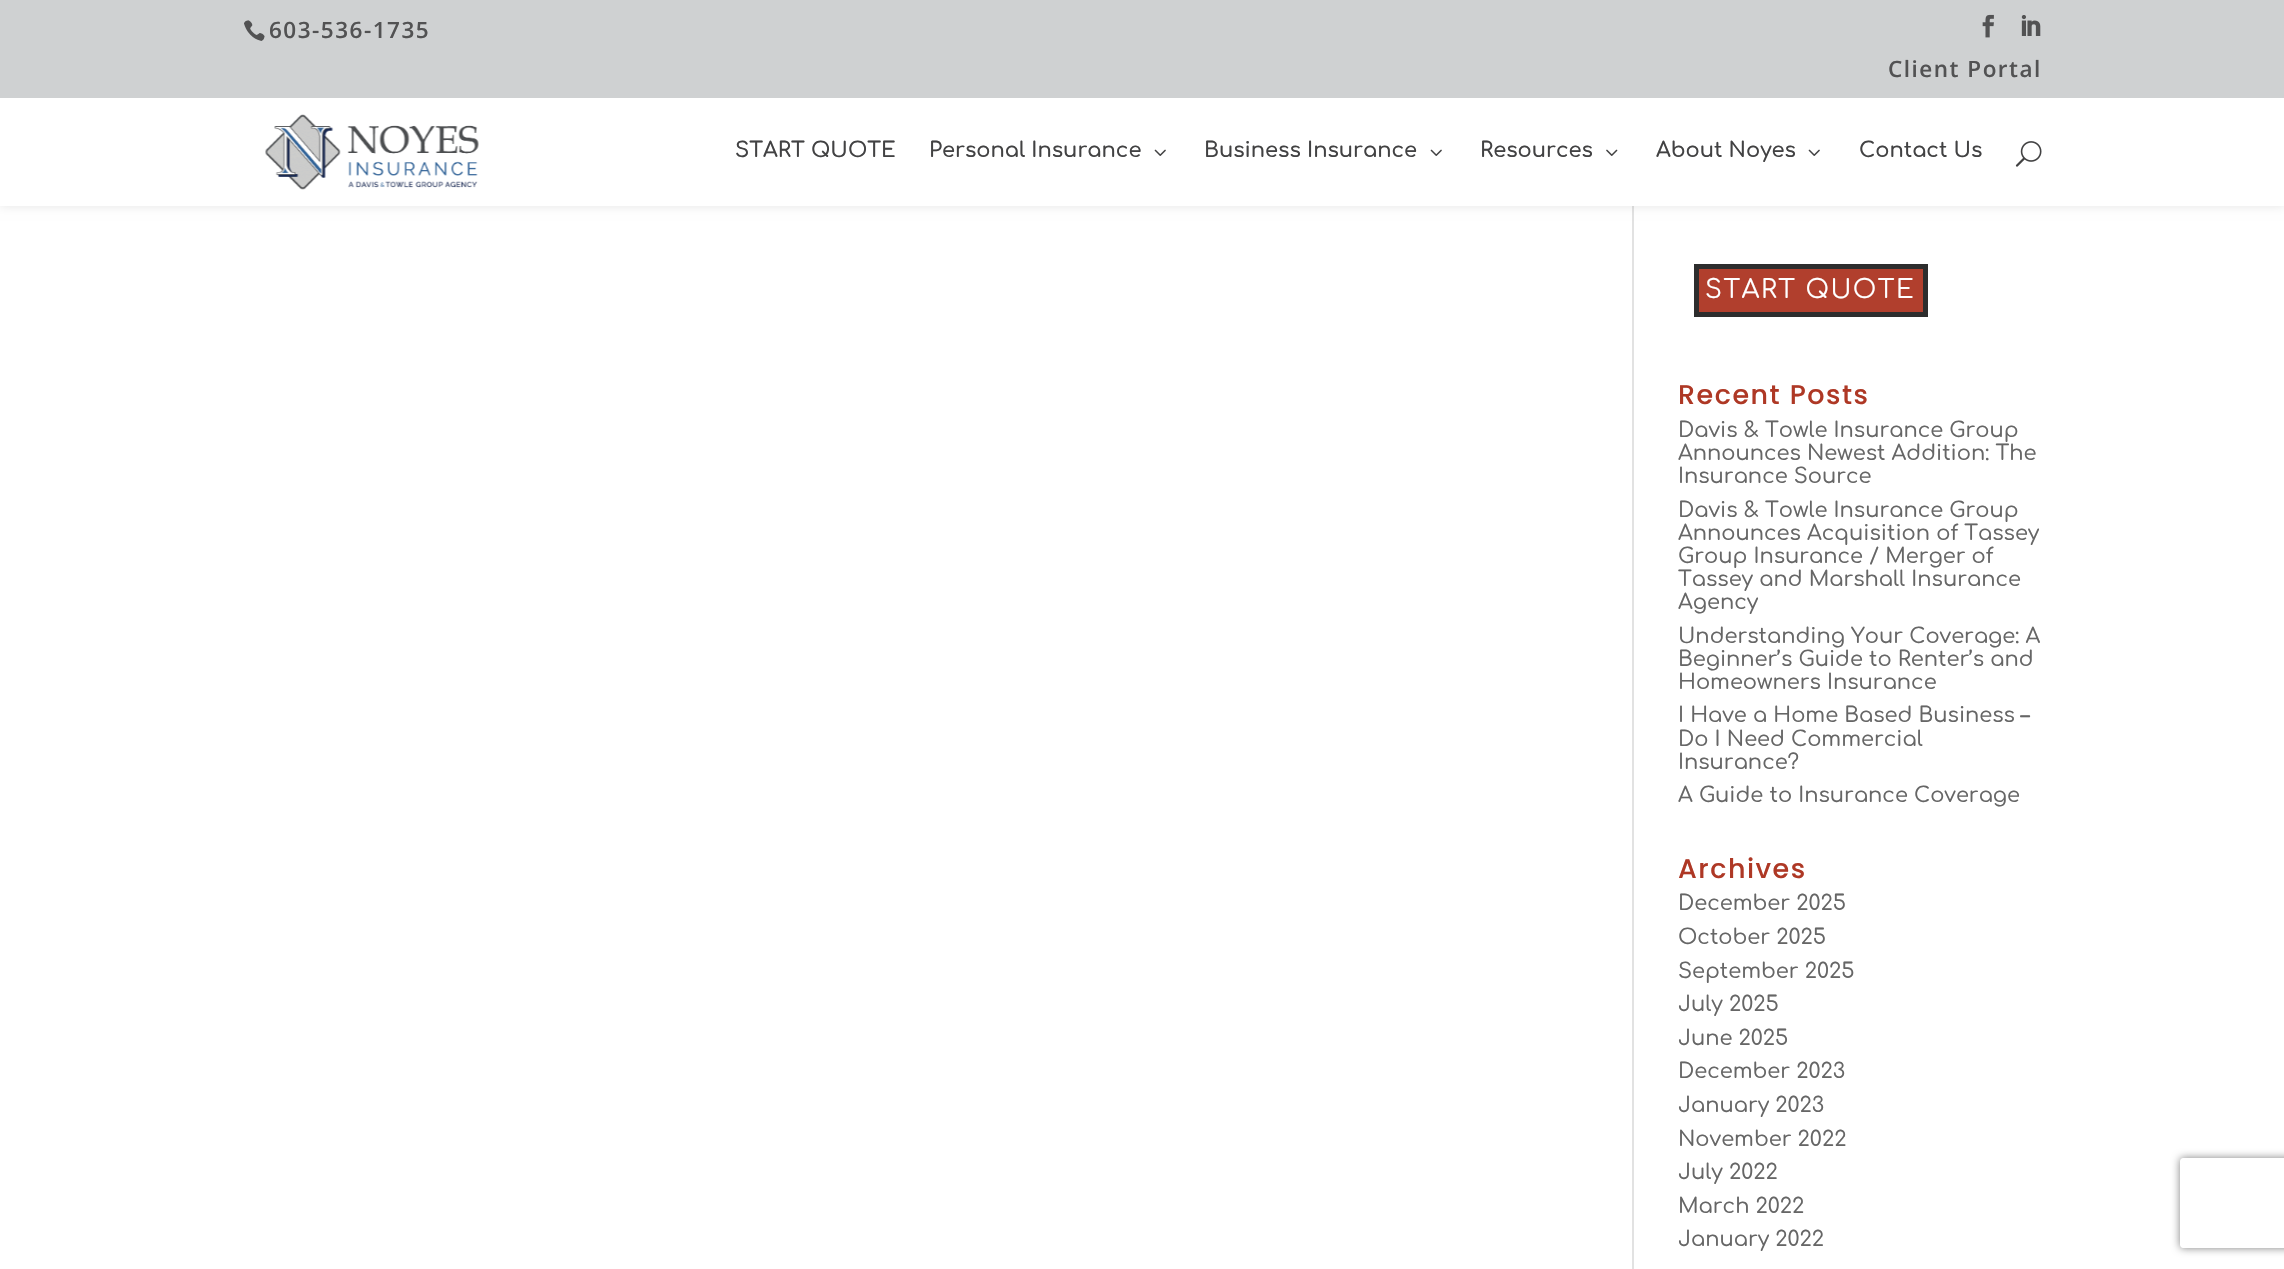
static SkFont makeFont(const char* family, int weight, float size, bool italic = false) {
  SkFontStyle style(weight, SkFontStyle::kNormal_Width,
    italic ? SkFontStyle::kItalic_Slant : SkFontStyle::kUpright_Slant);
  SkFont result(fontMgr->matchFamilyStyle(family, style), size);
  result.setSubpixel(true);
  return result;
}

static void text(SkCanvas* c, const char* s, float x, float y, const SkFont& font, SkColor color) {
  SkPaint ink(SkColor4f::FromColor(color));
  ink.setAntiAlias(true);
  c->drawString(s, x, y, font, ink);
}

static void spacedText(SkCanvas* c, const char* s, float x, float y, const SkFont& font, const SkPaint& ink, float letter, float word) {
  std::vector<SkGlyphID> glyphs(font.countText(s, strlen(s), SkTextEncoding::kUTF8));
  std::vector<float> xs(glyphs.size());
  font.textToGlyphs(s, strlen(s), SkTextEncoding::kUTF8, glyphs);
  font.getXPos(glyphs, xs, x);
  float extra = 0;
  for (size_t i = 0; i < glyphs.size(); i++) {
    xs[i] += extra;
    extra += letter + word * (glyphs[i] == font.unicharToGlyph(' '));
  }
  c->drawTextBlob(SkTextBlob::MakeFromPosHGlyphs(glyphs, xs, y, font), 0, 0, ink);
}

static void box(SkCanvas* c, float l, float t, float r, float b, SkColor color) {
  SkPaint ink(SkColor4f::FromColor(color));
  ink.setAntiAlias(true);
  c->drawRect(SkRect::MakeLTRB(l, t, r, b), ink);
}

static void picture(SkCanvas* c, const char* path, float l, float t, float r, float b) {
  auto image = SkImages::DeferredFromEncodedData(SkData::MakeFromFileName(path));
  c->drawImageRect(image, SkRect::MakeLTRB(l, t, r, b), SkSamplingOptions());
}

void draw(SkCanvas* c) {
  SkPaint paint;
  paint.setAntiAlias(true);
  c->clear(0xffffffff);
  box(c, 1632, 206, 1634, 1269, 0xffe2e2e2);
  paint.setColor(0x1a000000);
  paint.setMaskFilter(SkMaskFilter::MakeBlur(kNormal_SkBlurStyle, 5));
  c->drawRect(SkRect::MakeLTRB(0, 98, 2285, 206), paint);
  paint.setMaskFilter(nullptr);
  box(c, 0, 0, 2284, 98, 0xffcfd1d2);
  picture(c, "img_01.png", 244, 20, 265, 41);
  SkFont face1 = makeFont("Open Sans", 600, 22.5f);
  paint.setColor(0xff525253);
  spacedText(c, "603-536-1735", 269, 38, face1, paint, 1.5f, 0);
  picture(c, "img_02.png", 1982, 14, 1994, 38);
  picture(c, "img_03.png", 2021, 15, 2041, 36);
  spacedText(c, "Client Portal", 1888, 77, face1, paint, 1.5f, 0);
  box(c, 0, 98, 2284, 206, 0xffffffff);
  picture(c, "img_04.png", 265, 114, 479, 190);
  SkFont face2 = makeFont("Comfortaa", 600, 21);
  text(c, "START QUOTE", 735, 157, face2, 0xff424243);
  text(c, "Personal Insurance", 929, 157, face2, 0xff424243);
  picture(c, "img_05.png", 1154, 149, 1166, 156);
  text(c, "Business Insurance", 1204, 157, face2, 0xff424243);
  picture(c, "img_05.png", 1430, 149, 1442, 156);
  text(c, "Resources", 1480, 157, face2, 0xff424243);
  picture(c, "img_06.png", 1606, 149, 1618, 156);
  text(c, "About Noyes", 1656, 157, face2, 0xff424243);
  picture(c, "img_05.png", 1808, 149, 1820, 156);
  text(c, "Contact Us", 1859, 157, face2, 0xff424243);
  picture(c, "img_07.png", 2015, 141, 2042, 167);
  paint.setColor(0xffb13f2d);
  c->drawRect(SkRect::MakeLTRB(1696.5f, 266.5f, 1925.5f, 314.5f), paint);
  paint.setStyle(SkPaint::kStroke_Style);
  paint.setStrokeWidth(5);
  paint.setColor(0xff2d2d2d);
  c->drawRect(SkRect::MakeLTRB(1696.5f, 266.5f, 1925.5f, 314.5f), paint);
  SkFont face3 = makeFont("Comfortaa", 400, 25.5f);
  paint.setStyle(SkPaint::kFill_Style);
  paint.setColor(0xffffffff);
  spacedText(c, "START QUOTE", 1705, 298, face3, paint, 1.5f, 0);
  c->save();
  c->clipPath(SkPathBuilder(SkPathFillType::kEvenOdd).moveTo(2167, 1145).lineTo(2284, 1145).lineTo(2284, 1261).lineTo(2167, 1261).close().moveTo(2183, 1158).lineTo(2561, 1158).cubicTo(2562.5f, 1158, 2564, 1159.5f, 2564, 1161).lineTo(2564, 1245).cubicTo(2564, 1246.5f, 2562.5f, 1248, 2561, 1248).lineTo(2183, 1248).cubicTo(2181.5f, 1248, 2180, 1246.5f, 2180, 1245).lineTo(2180, 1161).cubicTo(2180, 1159.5f, 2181.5f, 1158, 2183, 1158).close().detach(), true);
  paint.setColor(0xff808080);
  paint.setMaskFilter(SkMaskFilter::MakeBlur(kNormal_SkBlurStyle, 4));
  c->drawRoundRect(SkRect::MakeLTRB(2180, 1158, 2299, 1248), 3, 3, paint);
  paint.setMaskFilter(nullptr);
  c->restore();
  SkFont face4 = makeFont("Poppins", 500, 27);
  paint.setColor(0xffae3825);
  spacedText(c, "Recent Posts", 1678, 404, face4, paint, 1.5f, 0);
  SkFont face5 = makeFont("Comfortaa", 500, 21);
  text(c, "Davis & Towle Insurance Group", 1678, 437, face5, 0xff666666);
  text(c, "Announces Newest Addition: The", 1678, 460, face5, 0xff666666);
  text(c, "Insurance Source", 1678, 483, face5, 0xff666666);
  text(c, "Davis & Towle Insurance Group", 1678, 517, face5, 0xff666666);
  text(c, "Announces Acquisition of Tassey", 1678, 540, face5, 0xff666666);
  text(c, "Group Insurance / Merger of", 1678, 563, face5, 0xff666666);
  text(c, "Tassey and Marshall Insurance", 1678, 586, face5, 0xff666666);
  text(c, "Agency", 1678, 609, face5, 0xff666666);
  text(c, "Understanding Your Coverage: A", 1678, 643, face5, 0xff666666);
  text(c, "Beginner’s Guide to Renter’s and", 1678, 666, face5, 0xff666666);
  text(c, "Homeowners Insurance", 1678, 689, face5, 0xff666666);
  text(c, "I Have a Home Based Business –", 1678, 722, face5, 0xff666666);
  text(c, "Do I Need Commercial", 1678, 746, face5, 0xff666666);
  text(c, "Insurance?", 1678, 769, face5, 0xff666666);
  text(c, "A Guide to Insurance Coverage", 1678, 802, face5, 0xff666666);
  spacedText(c, "Archives", 1678, 878, face4, paint, 1.5f, 0);
  text(c, "December 2025", 1678, 910, face5, 0xff666666);
  text(c, "October 2025", 1678, 944, face5, 0xff666666);
  text(c, "September 2025", 1678, 978, face5, 0xff666666);
  text(c, "July 2025", 1678, 1011, face5, 0xff666666);
  text(c, "June 2025", 1678, 1045, face5, 0xff666666);
  text(c, "December 2023", 1678, 1078, face5, 0xff666666);
  text(c, "January 2023", 1678, 1112, face5, 0xff666666);
  text(c, "November 2022", 1678, 1146, face5, 0xff666666);
  text(c, "July 2022", 1678, 1179, face5, 0xff666666);
  text(c, "March 2022", 1678, 1213, face5, 0xff666666);
  text(c, "January 2022", 1678, 1246, face5, 0xff666666);
}
